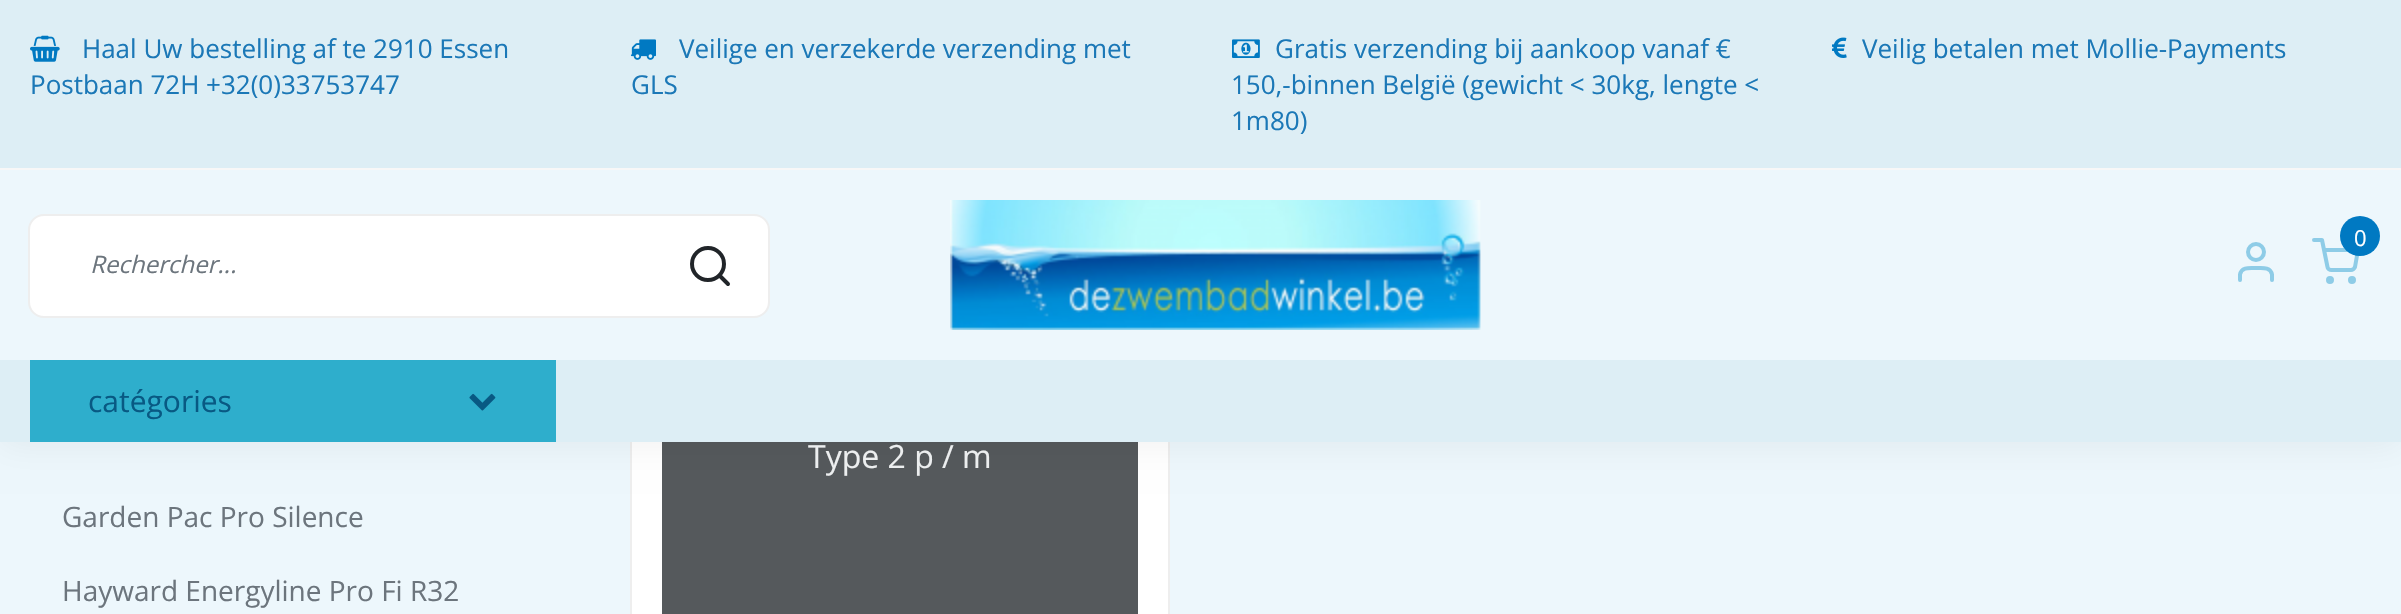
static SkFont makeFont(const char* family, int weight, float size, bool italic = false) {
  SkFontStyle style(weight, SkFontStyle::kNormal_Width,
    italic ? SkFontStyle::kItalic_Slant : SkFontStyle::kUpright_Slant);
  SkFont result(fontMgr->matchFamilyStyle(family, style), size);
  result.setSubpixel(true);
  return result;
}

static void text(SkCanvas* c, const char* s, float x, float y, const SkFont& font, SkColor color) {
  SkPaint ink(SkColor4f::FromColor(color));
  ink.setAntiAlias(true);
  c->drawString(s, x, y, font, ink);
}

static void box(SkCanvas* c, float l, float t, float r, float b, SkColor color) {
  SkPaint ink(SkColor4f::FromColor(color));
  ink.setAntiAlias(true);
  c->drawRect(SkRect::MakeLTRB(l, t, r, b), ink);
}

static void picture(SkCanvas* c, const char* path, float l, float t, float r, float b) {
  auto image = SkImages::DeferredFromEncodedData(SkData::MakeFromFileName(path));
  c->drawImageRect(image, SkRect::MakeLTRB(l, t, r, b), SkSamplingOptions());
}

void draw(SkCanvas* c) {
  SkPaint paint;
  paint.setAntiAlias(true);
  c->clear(0xffedf7fc);
  box(c, 632, 442, 1168, 614, 0xffffffff);
  paint.setStyle(SkPaint::kStroke_Style);
  paint.setStrokeWidth(2);
  paint.setColor(0xffeeeeee);
  c->drawRect(SkRect::MakeLTRB(631, 117, 1169, 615), paint);
  box(c, 662, 442, 1138, 614, 0xff55595c);
  paint.setStyle(SkPaint::kFill_Style);
  paint.setColor(0x0d000000);
  paint.setMaskFilter(SkMaskFilter::MakeBlur(kNormal_SkBlurStyle, 16));
  c->drawRect(SkRect::MakeLTRB(0, 4, 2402, 446), paint);
  paint.setMaskFilter(nullptr);
  box(c, 0, 0, 2401, 168, 0xffddeef5);
  box(c, 0, 168, 2401, 170, 0xfff7f7f7);
  picture(c, "img_01.png", 30, 35, 60, 62);
  SkFont face1 = makeFont("Open Sans", 400, 26);
  text(c, "Haal Uw bestelling af te 2910 Essen", 82, 58, face1, 0xff1b78b7);
  text(c, "Postbaan 72H +32(0)33753747", 30, 94, face1, 0xff1b78b7);
  picture(c, "img_02.png", 630, 39, 656, 60);
  text(c, "Veilige en verzekerde verzending met", 679, 58, face1, 0xff1b78b7);
  text(c, "GLS", 631, 94, face1, 0xff1b78b7);
  picture(c, "img_03.png", 1232, 39, 1260, 58);
  text(c, "Gratis verzending bij aankoop vanaf €", 1275, 58, face1, 0xff1b78b7);
  text(c, "150,-binnen België (gewicht < 30kg, lengte <", 1231, 94, face1, 0xff1b78b7);
  text(c, "1m80)", 1231, 130, face1, 0xff1b78b7);
  picture(c, "img_04.png", 1832, 37, 1847, 58);
  text(c, "Veilig betalen met Mollie-Payments", 1862, 58, face1, 0xff1b78b7);
  box(c, 0, 170, 2401, 360, 0xffedf7fc);
  picture(c, "img_05.png", 950, 200, 1481, 330);
  paint.setStyle(SkPaint::kStroke_Style);
  paint.setStrokeWidth(4);
  paint.setStrokeCap(SkPaint::kRound_Cap);
  paint.setStrokeJoin(SkPaint::kRound_Join);
  paint.setColor(0xff8ecce7);
  c->drawPath(SkPathBuilder().moveTo(2314, 240).lineTo(2322, 240).lineTo(2327.5f, 267).cubicTo(2327.5f, 268.5f, 2329.5f, 270, 2331.5f, 270).lineTo(2351, 270).cubicTo(2352.5f, 270, 2354.5f, 268.5f, 2355, 267).lineTo(2358, 250).lineTo(2324, 250).detach(), paint);
  paint.setStyle(SkPaint::kFill_Style);
  paint.setColor(0xff0079c2);
  c->drawCircle(2360, 236, 20, paint);
  SkFont face2 = makeFont("Open Sans", 400, 22);
  text(c, "0", 2354, 246, face2, 0xffffffff);
  paint.setStyle(SkPaint::kStroke_Style);
  paint.setStrokeCap(SkPaint::kButt_Cap);
  paint.setStrokeJoin(SkPaint::kMiter_Join);
  paint.setColor(0xff8ecce7);
  c->drawCircle(2330, 280, 2, paint);
  c->drawCircle(2352, 280, 2, paint);
  paint.setStrokeCap(SkPaint::kRound_Cap);
  paint.setStrokeJoin(SkPaint::kRound_Join);
  c->drawPath(SkPathBuilder().moveTo(2272, 280).lineTo(2272, 274.5f).cubicTo(2270.5f, 266.5f, 2262, 268, 2256, 268).cubicTo(2250, 268, 2241.5f, 266.5f, 2240, 274.5f).lineTo(2240, 280).detach(), paint);
  paint.setStrokeCap(SkPaint::kButt_Cap);
  paint.setStrokeJoin(SkPaint::kMiter_Join);
  c->drawCircle(2256, 252, 8, paint);
  paint.setStyle(SkPaint::kFill_Style);
  paint.setColor(0xffffffff);
  c->drawRoundRect(SkRect::MakeLTRB(29, 215, 769, 317), 15, 15, paint);
  paint.setStyle(SkPaint::kStroke_Style);
  paint.setStrokeWidth(2);
  paint.setColor(0xffeeeeee);
  c->drawRoundRect(SkRect::MakeLTRB(29, 215, 769, 317), 15, 15, paint);
  SkFont face3 = makeFont("Open Sans", 400, 24, true);
  text(c, "Rechercher...", 90, 273, face3, 0xff6c757d);
  paint.setStrokeWidth(4);
  paint.setColor(0xff212529);
  c->drawCircle(708, 264, 16, paint);
  paint.setStrokeCap(SkPaint::kRound_Cap);
  paint.setStrokeJoin(SkPaint::kRound_Join);
  c->drawPath(SkPathBuilder().moveTo(728, 284).lineTo(719.5f, 275.5f).detach(), paint);
  box(c, 0, 360, 2401, 442, 0xffddeef5);
  box(c, 30, 360, 556, 442, 0xff2eaecc);
  SkFont face4 = makeFont("Open Sans", 400, 30);
  text(c, "catégories", 88, 412, face4, 0xff085983);
  picture(c, "img_06.png", 469, 393, 496, 411);
  SkFont face5 = makeFont("Open Sans", 400, 32);
  text(c, "Type 2 p / m", 808, 468, face5, 0xffeceeef);
  SkFont face6 = makeFont("Open Sans", 400, 28);
  text(c, "Garden Pac Pro Silence", 62, 527, face6, 0xff6c757d);
  text(c, "Hayward Energyline Pro Fi R32", 62, 601, face6, 0xff6c757d);
}
